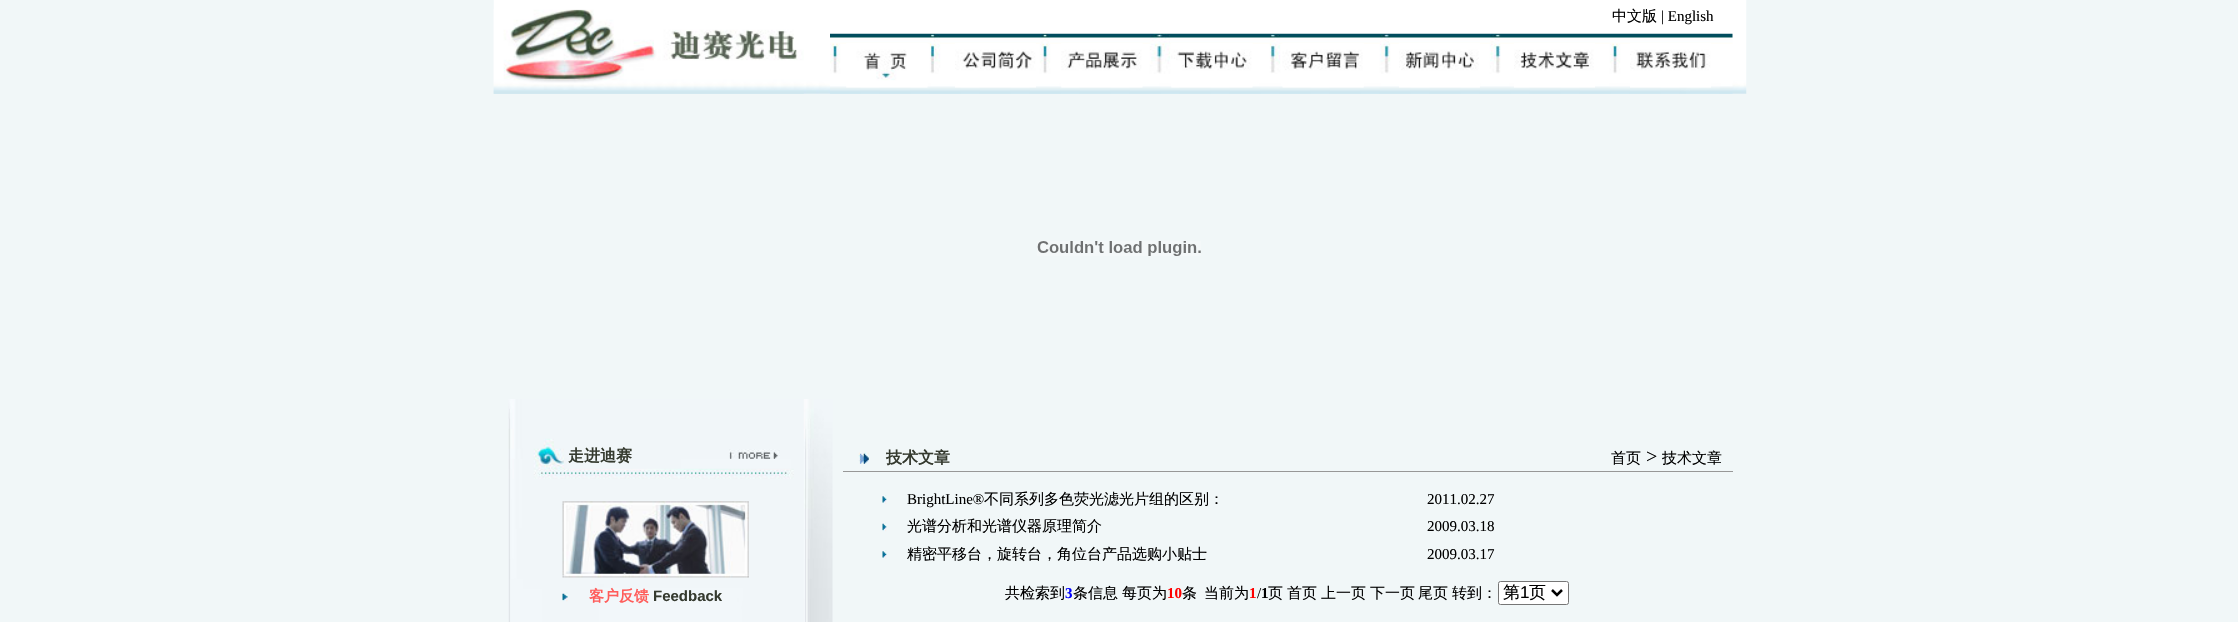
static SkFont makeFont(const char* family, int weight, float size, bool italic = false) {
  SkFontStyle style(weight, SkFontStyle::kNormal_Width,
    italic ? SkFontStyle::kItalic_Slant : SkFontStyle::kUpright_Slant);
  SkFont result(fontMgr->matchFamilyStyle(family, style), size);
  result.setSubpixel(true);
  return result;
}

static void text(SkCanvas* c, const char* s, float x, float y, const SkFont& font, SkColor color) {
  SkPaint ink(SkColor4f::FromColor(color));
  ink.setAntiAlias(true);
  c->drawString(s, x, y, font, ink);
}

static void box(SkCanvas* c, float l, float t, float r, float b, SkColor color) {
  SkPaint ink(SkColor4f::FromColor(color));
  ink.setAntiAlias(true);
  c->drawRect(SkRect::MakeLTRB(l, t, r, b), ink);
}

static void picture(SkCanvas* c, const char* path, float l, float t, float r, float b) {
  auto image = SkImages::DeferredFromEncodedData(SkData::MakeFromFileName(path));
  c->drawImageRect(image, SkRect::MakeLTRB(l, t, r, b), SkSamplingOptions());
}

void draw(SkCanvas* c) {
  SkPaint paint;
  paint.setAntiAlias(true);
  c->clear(0xfff1f7f8);
  picture(c, "img_01.png", 493, 0, 1747, 94);
  picture(c, "img_02.png", 493, 9, 804, 94);
  SkFont face1 = makeFont("WenQuanYi Zen Hei", 500, 15);
  text(c, "中文版", 1612, 21, face1, 0xff000000);
  SkFont face2 = makeFont("Liberation Serif", 400, 15);
  text(c, "| English", 1661, 21, face2, 0xff000000);
  picture(c, "img_03.png", 830, 33, 1733, 94);
  picture(c, "img_04.png", 846, 43, 928, 88);
  picture(c, "img_05.png", 955, 43, 1036, 88);
  picture(c, "img_06.png", 1061, 43, 1143, 88);
  picture(c, "img_07.png", 1171, 43, 1253, 88);
  picture(c, "img_08.png", 1282, 43, 1364, 88);
  picture(c, "img_09.png", 1399, 43, 1480, 88);
  picture(c, "img_10.png", 1514, 43, 1595, 88);
  picture(c, "img_11.png", 1630, 43, 1711, 88);
  picture(c, "img_12.png", 1037, 241, 1201, 256);
  picture(c, "img_13.png", 508, 399, 833, 622);
  SkFont face3 = makeFont("WenQuanYi Zen Hei", 700, 16);
  text(c, "走进迪赛", 568, 461, face3, 0xff353a2f);
  picture(c, "img_14.png", 729, 449, 780, 459);
  picture(c, "img_15.png", 562, 501, 749, 578);
  picture(c, "img_16.png", 562, 592, 568, 602);
  SkFont face4 = makeFont("WenQuanYi Zen Hei", 700, 15);
  text(c, "客户反馈", 589, 601, face4, 0xffff5d5b);
  SkFont face5 = makeFont("Liberation Sans", 700, 15);
  text(c, "Feedback", 653, 601, face5, 0xff353a2f);
  box(c, 843, 471, 1733, 472, 0xff989898);
  picture(c, "img_17.png", 858, 452, 869, 464);
  text(c, "技术文章", 886, 463, face3, 0xff353a2f);
  text(c, "首页", 1611, 463, face1, 0xff000000);
  SkFont face6 = makeFont("Liberation Serif", 400, 20);
  text(c, ">", 1646, 463, face6, 0xff000000);
  text(c, "技术文章", 1662, 463, face1, 0xff000000);
  picture(c, "img_18.png", 882, 495, 887, 504);
  text(c, "BrightLine®", 907, 504, face2, 0xff000000);
  text(c, "不同系列多色荧光滤光片组的区别：", 984, 504, face1, 0xff000000);
  text(c, "2011.02.27", 1427, 504, face2, 0xff000000);
  picture(c, "img_19.png", 882, 522, 887, 532);
  text(c, "光谱分析和光谱仪器原理简介", 907, 531, face1, 0xff000000);
  text(c, "2009.03.18", 1427, 531, face2, 0xff000000);
  picture(c, "img_18.png", 882, 550, 887, 559);
  text(c, "精密平移台，旋转台，角位台产品选购小贴士", 907, 559, face1, 0xff000000);
  text(c, "2009.03.17", 1427, 559, face2, 0xff000000);
  text(c, "共检索到", 1005, 598, face1, 0xff000000);
  SkFont face7 = makeFont("Liberation Serif", 700, 15);
  text(c, "3", 1065, 598, face7, 0xff0000ff);
  text(c, "条信息", 1073, 598, face1, 0xff000000);
  text(c, "每页为", 1122, 598, face1, 0xff000000);
  text(c, "10", 1167, 598, face7, 0xffff0000);
  text(c, "条", 1182, 598, face1, 0xff000000);
  text(c, "当前为", 1204, 598, face1, 0xff000000);
  text(c, "1", 1249, 598, face7, 0xffff0000);
  text(c, "/", 1257, 598, face2, 0xff000000);
  text(c, "1", 1261, 598, face7, 0xff000000);
  text(c, "页", 1268, 598, face1, 0xff000000);
  text(c, "首页", 1287, 598, face1, 0xff000000);
  text(c, "上一页", 1321, 598, face1, 0xff000000);
  text(c, "下一页", 1370, 598, face1, 0xff000000);
  text(c, "尾页", 1418, 598, face1, 0xff000000);
  text(c, "转到：", 1452, 598, face1, 0xff000000);
  paint.setColor(0xffffffff);
  c->drawRoundRect(SkRect::MakeLTRB(1498.5f, 581.5f, 1568.5f, 604.5f), 2, 2, paint);
  paint.setStyle(SkPaint::kStroke_Style);
  paint.setStrokeWidth(1);
  paint.setColor(0xff767676);
  c->drawRoundRect(SkRect::MakeLTRB(1498.5f, 581.5f, 1568.5f, 604.5f), 2, 2, paint);
  paint.setStrokeWidth(2.5f);
  paint.setColor(0xff000000);
  c->drawPath(SkPathBuilder().moveTo(1552, 590).lineTo(1557, 595).lineTo(1562, 590).detach(), paint);
  SkFont face8 = makeFont("WenQuanYi Zen Hei", 500, 17);
  text(c, "第", 1503, 598, face8, 0xff000000);
  SkFont face9 = makeFont("Liberation Sans", 400, 17);
  text(c, "1", 1520, 598, face9, 0xff000000);
  text(c, "页", 1529, 598, face8, 0xff000000);
}
